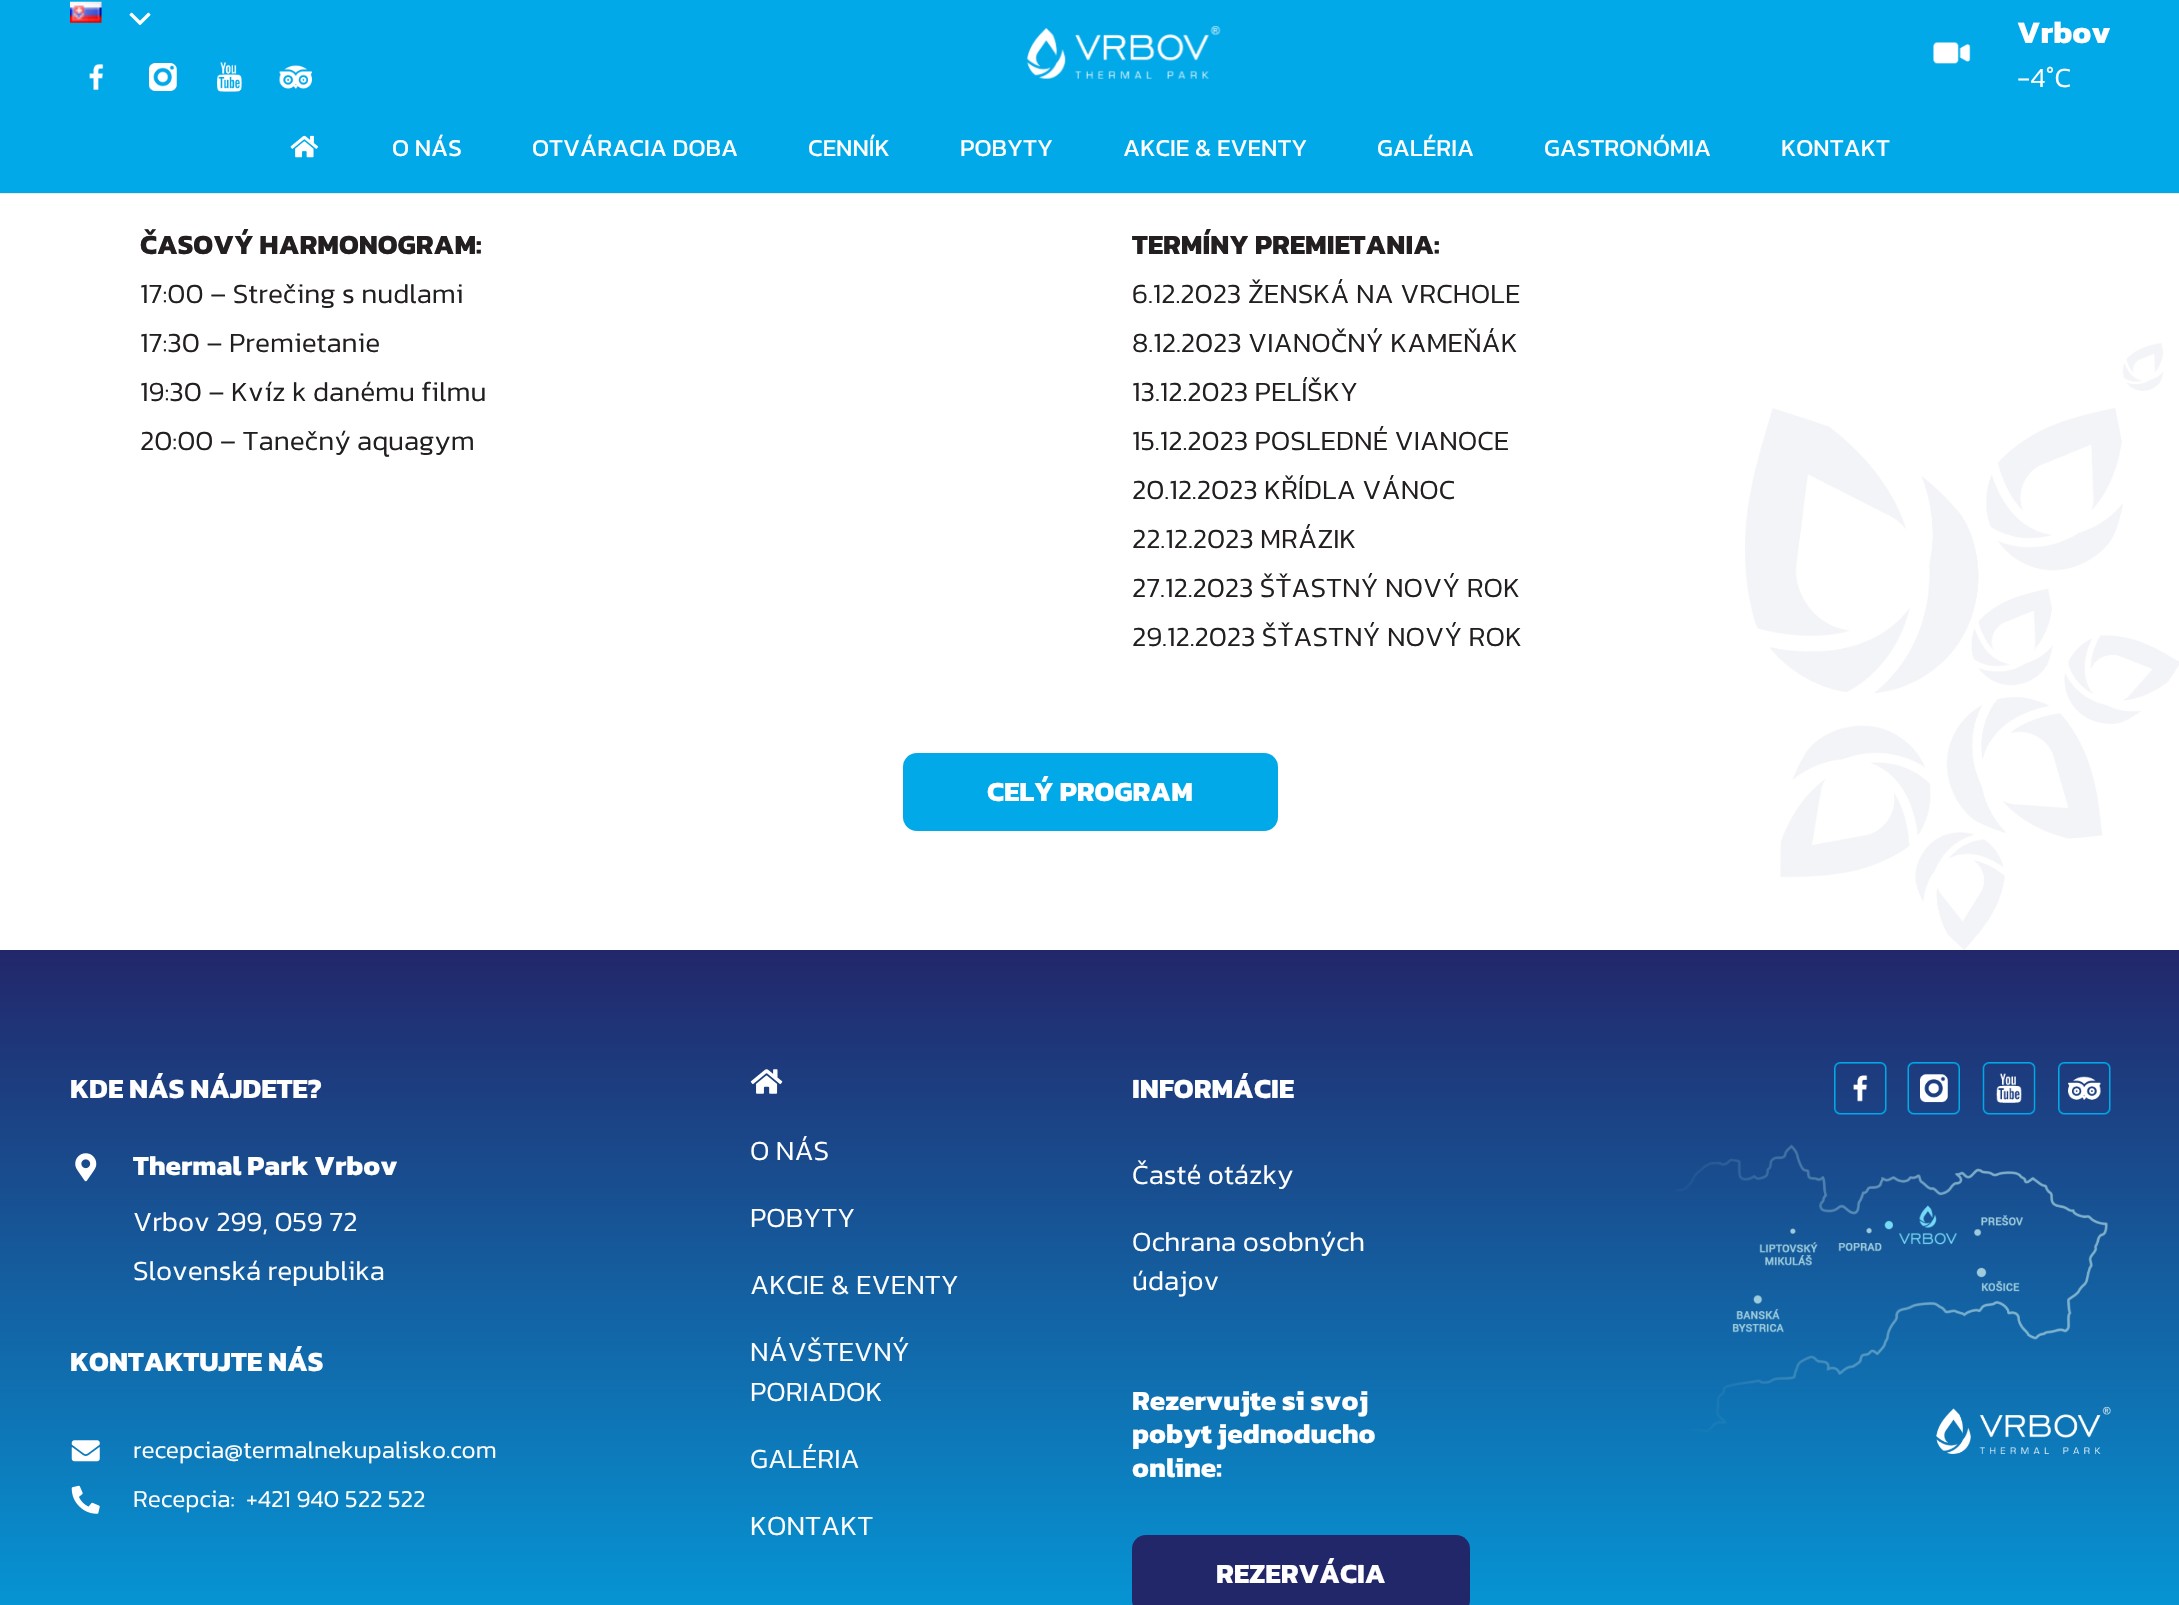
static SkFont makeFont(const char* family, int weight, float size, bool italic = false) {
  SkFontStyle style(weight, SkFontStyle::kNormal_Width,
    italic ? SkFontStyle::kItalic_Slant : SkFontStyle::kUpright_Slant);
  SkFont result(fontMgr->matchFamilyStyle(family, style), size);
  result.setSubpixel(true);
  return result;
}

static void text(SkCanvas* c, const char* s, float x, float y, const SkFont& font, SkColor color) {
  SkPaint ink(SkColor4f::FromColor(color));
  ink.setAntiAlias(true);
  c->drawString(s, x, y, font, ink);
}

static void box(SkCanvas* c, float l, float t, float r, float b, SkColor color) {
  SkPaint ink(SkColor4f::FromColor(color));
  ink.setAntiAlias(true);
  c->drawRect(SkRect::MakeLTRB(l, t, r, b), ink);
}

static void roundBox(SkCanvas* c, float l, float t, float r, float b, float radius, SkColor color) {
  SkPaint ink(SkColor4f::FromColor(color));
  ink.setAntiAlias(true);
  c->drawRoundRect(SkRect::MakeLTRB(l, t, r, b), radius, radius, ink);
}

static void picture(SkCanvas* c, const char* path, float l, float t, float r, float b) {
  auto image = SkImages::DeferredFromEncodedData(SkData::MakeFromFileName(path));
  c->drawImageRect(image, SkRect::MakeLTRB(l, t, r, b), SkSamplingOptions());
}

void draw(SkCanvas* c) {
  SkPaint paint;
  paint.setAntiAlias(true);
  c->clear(0xffffffff);
  box(c, 0, 0, 2179, 105, 0xff01a9e8);
  picture(c, "img_01.png", 70, 1, 102, 23);
  picture(c, "img_02.png", 129, 12, 151, 26);
  picture(c, "img_03.png", 89, 64, 104, 91);
  picture(c, "img_04.png", 149, 63, 177, 91);
  picture(c, "img_05.png", 217, 62, 242, 92);
  picture(c, "img_06.png", 279, 65, 312, 89);
  picture(c, "img_07.png", 1026, 26, 1221, 79);
  picture(c, "img_08.png", 1933, 42, 1971, 64);
  SkFont face1 = makeFont("Kanit", 700, 31.5f);
  text(c, "Vrbov", 2017, 43, face1, 0xffffffff);
  SkFont face2 = makeFont("Kanit", 300, 28);
  text(c, "-4°C", 2017, 87, face2, 0xffffffff);
  paint.setColor(0xffebebeb);
  c->drawPath(SkPathBuilder().moveTo(0, 192).lineTo(0, 194).lineTo(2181, 194).lineTo(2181, 107).lineTo(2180, 107).lineTo(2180, 192).close().detach(), paint);
  box(c, 0, 105, 2179, 193, 0xff01a9e8);
  picture(c, "img_09.png", 290, 135, 319, 158);
  SkFont face3 = makeFont("Kanit", 400, 24.5f);
  text(c, "O NÁS", 392, 156, face3, 0xffffffff);
  text(c, "OTVÁRACIA DOBA", 532, 156, face3, 0xffffffff);
  text(c, "CENNÍK", 808, 156, face3, 0xffffffff);
  text(c, "POBYTY", 960, 156, face3, 0xffffffff);
  text(c, "AKCIE & EVENTY", 1123, 156, face3, 0xffffffff);
  text(c, "GALÉRIA", 1377, 156, face3, 0xffffffff);
  text(c, "GASTRONÓMIA", 1544, 156, face3, 0xffffffff);
  text(c, "KONTAKT", 1781, 156, face3, 0xffffffff);
  picture(c, "img_10.png", 1745, 343, 2179, 950);
  SkFont face4 = makeFont("Kanit", 700, 28);
  text(c, "ČASOVÝ HARMONOGRAM:", 140, 254, face4, 0xff231f20);
  text(c, "17:00 – Strečing s nudlami", 140, 303, face2, 0xff231f20);
  text(c, "17:30 – Premietanie", 140, 352, face2, 0xff231f20);
  text(c, "19:30 – Kvíz k danému filmu", 140, 401, face2, 0xff231f20);
  text(c, "20:00 – Tanečný aquagym", 140, 450, face2, 0xff231f20);
  text(c, "TERMÍNY PREMIETANIA:", 1132, 254, face4, 0xff231f20);
  text(c, "6.12.2023 ŽENSKÁ NA VRCHOLE", 1132, 303, face2, 0xff231f20);
  text(c, "8.12.2023 VIANOČNÝ KAMEŇÁK", 1132, 352, face2, 0xff231f20);
  text(c, "13.12.2023 PELÍŠKY", 1132, 401, face2, 0xff231f20);
  text(c, "15.12.2023 POSLEDNÉ VIANOCE", 1132, 450, face2, 0xff231f20);
  text(c, "20.12.2023 KŘÍDLA VÁNOC", 1132, 499, face2, 0xff231f20);
  text(c, "22.12.2023 MRÁZIK", 1132, 548, face2, 0xff231f20);
  text(c, "27.12.2023 ŠŤASTNÝ NOVÝ ROK", 1132, 597, face2, 0xff231f20);
  text(c, "29.12.2023 ŠŤASTNÝ NOVÝ ROK", 1132, 646, face2, 0xff231f20);
  roundBox(c, 903, 753, 1278, 831, 14, 0xff01a9e8);
  text(c, "CELÝ PROGRAM", 987, 801, face4, 0xffffffff);
  {
    const SkColor colors[] = {0xff01a9e8, 0xff22276a};
    const float stops[] = {0, 1};
    const SkPoint ends[] = {{1090, 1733}, {1090, 950}};
    paint.setShader(SkGradientShader::MakeLinear(ends, colors, stops, 2, SkTileMode::kClamp));
    paint.setAlpha(255);
  }
  c->drawRect(SkRect::MakeLTRB(0, 950, 2179, 1605), paint);
  text(c, "KDE NÁS NÁJDETE?", 70, 1098, face4, 0xffffffff);
  picture(c, "img_11.png", 75, 1153, 97, 1182);
  text(c, "Thermal Park Vrbov", 133, 1175, face4, 0xffffffff);
  text(c, "Vrbov 299, 059 72", 133, 1231, face2, 0xffffffff);
  text(c, "Slovenská republika", 133, 1280, face2, 0xffffffff);
  text(c, "KONTAKTUJTE NÁS", 70, 1371, face4, 0xffffffff);
  picture(c, "img_12.png", 71, 1440, 100, 1462);
  SkFont face5 = makeFont("Kanit", 300, 24.5f);
  text(c, "recepcia@termalnekupalisko.com", 133, 1458, face5, 0xffffffff);
  picture(c, "img_13.png", 71, 1485, 100, 1514);
  text(c, "Recepcia:", 133, 1507, face5, 0xffffffff);
  text(c, "+421 940 522 522", 246, 1507, face5, 0xffffffff);
  picture(c, "img_14.png", 750, 1069, 783, 1094);
  text(c, "O NÁS", 750, 1160, face2, 0xffffffff);
  text(c, "POBYTY", 750, 1227, face2, 0xffffffff);
  text(c, "AKCIE & EVENTY", 750, 1294, face2, 0xffffffff);
  text(c, "NÁVŠTEVNÝ", 750, 1361, face2, 0xffffffff);
  text(c, "PORIADOK", 750, 1401, face2, 0xffffffff);
  text(c, "GALÉRIA", 750, 1468, face2, 0xffffffff);
  text(c, "KONTAKT", 750, 1535, face2, 0xffffffff);
  text(c, "INFORMÁCIE", 1132, 1098, face4, 0xffffffff);
  text(c, "Časté otázky", 1132, 1184, face2, 0xffffffff);
  text(c, "Ochrana osobných", 1132, 1251, face2, 0xffffffff);
  text(c, "údajov", 1132, 1290, face2, 0xffffffff);
  text(c, "Rezervujte si svoj", 1132, 1410, face4, 0xffffffff);
  text(c, "pobyt jednoducho", 1132, 1443, face4, 0xffffffff);
  text(c, "online:", 1132, 1477, face4, 0xffffffff);
  roundBox(c, 1132, 1535, 1470, 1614, 14, 0xff22276a);
  text(c, "REZERVÁCIA", 1216, 1583, face4, 0xffffffff);
  picture(c, "img_15.png", 1834, 1062, 1887, 1115);
  picture(c, "img_16.png", 1907, 1062, 1960, 1115);
  picture(c, "img_17.png", 1982, 1062, 2036, 1115);
  picture(c, "img_18.png", 2058, 1062, 2111, 1115);
  picture(c, "img_19.png", 1675, 1144, 2111, 1454);
}
